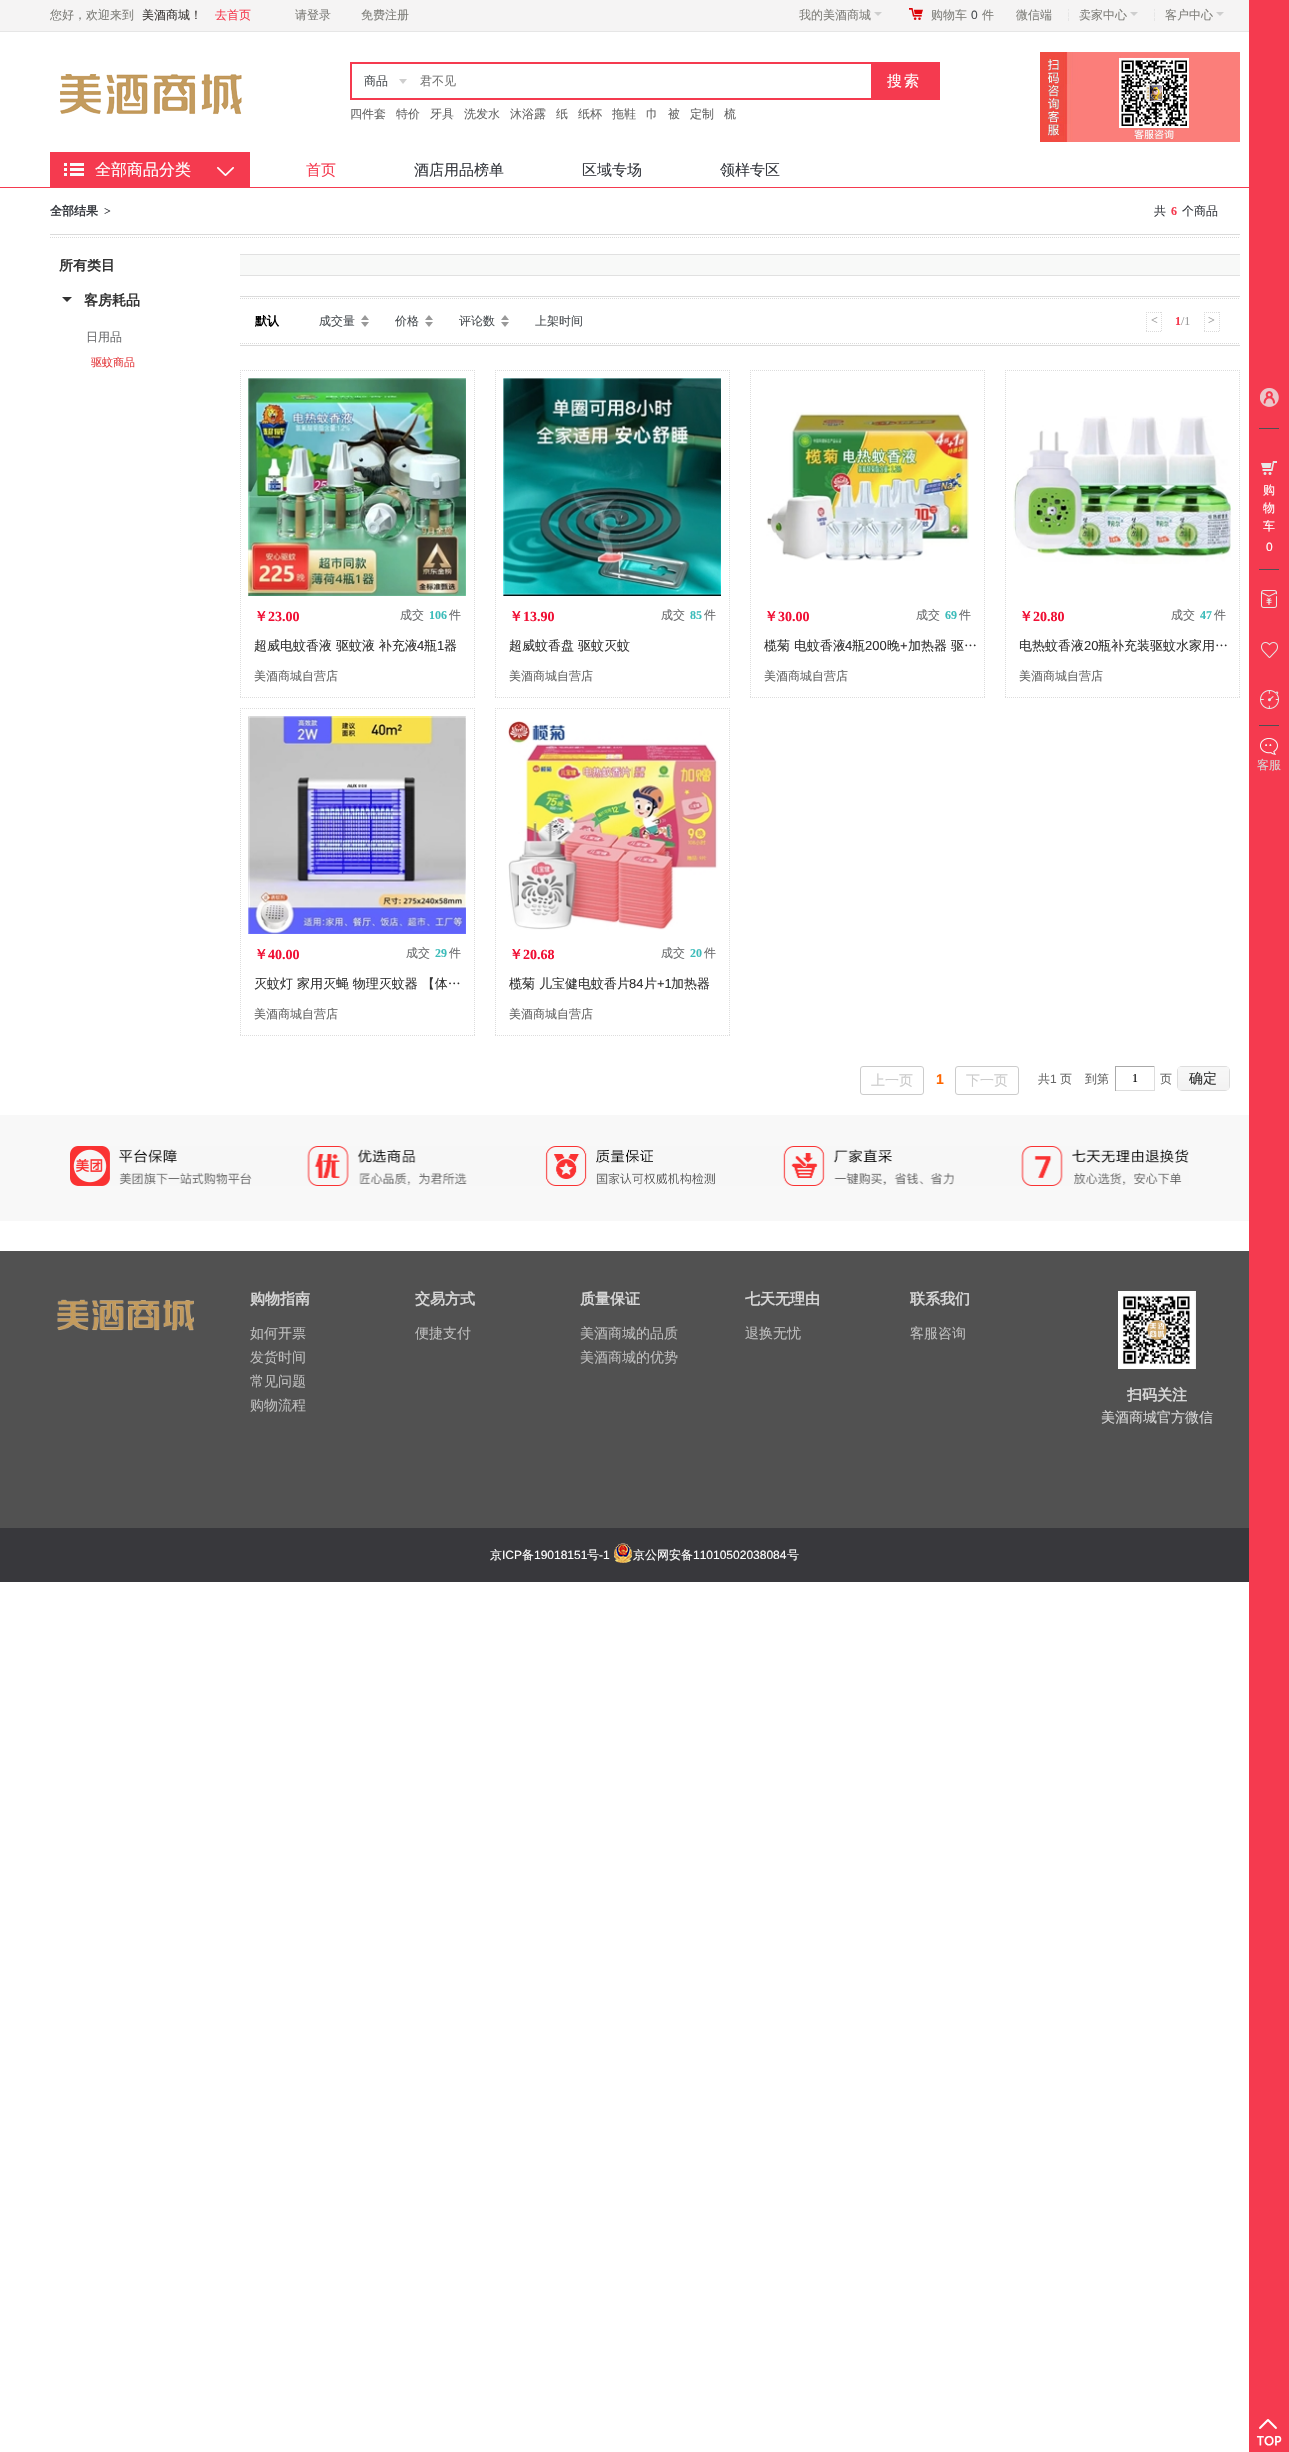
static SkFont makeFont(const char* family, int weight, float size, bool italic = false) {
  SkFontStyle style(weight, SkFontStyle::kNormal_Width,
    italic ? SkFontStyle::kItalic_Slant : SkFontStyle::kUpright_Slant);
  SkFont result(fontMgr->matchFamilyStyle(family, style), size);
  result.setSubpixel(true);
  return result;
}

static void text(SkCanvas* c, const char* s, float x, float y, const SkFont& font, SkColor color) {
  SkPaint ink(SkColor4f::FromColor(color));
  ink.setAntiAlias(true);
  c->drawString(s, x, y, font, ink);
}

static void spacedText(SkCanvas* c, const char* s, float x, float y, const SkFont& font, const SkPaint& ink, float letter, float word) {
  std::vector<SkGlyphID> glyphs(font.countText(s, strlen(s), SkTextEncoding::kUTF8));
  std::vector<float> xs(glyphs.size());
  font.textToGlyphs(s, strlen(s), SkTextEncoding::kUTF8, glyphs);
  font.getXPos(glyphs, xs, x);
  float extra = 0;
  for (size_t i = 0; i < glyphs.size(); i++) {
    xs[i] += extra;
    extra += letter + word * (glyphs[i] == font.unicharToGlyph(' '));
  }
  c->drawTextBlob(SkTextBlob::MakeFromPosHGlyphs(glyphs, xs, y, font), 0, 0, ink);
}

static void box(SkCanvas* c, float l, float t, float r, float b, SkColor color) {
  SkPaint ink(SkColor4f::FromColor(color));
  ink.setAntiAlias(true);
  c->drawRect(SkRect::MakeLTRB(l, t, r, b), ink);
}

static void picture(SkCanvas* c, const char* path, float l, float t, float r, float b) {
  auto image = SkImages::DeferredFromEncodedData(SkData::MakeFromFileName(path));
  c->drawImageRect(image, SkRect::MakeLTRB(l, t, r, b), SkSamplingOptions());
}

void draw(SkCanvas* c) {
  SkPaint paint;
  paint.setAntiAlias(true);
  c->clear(0xffffffff);
  box(c, 0, 0, 1249, 31, 0xfff5f4f4);
  box(c, 0, 31, 1249, 32, 0xffe6e6e6);
  SkFont face1 = makeFont("WenQuanYi Zen Hei", 500, 12);
  text(c, "您好，欢迎来到", 50, 19, face1, 0xff7f7f7a);
  text(c, "美酒商城！", 142, 19, face1, 0xff3e3a39);
  text(c, "去首页", 215, 19, face1, 0xfff53a4f);
  text(c, "请登录", 295, 19, face1, 0xff7f7f7a);
  text(c, "免费注册", 361, 19, face1, 0xff7f7f7a);
  text(c, "我的美酒商城", 799, 19, face1, 0xff7f7f7a);
  paint.setColor(0xffcecece);
  c->drawPath(SkPathBuilder().moveTo(874, 12).lineTo(882, 12).lineTo(878, 16).close().detach(), paint);
  picture(c, "img_01.png", 909, 8, 923, 20);
  text(c, "购物车", 931, 19, face1, 0xff7f7f7a);
  SkFont face2 = makeFont("Liberation Sans", 400, 12);
  text(c, "0", 971, 19, face2, 0xff494e52);
  text(c, "件", 982, 19, face1, 0xff7f7f7a);
  text(c, "微信端", 1016, 19, face1, 0xff7f7f7a);
  picture(c, "img_02.png", 1068, 9, 1069, 21);
  text(c, "卖家中心", 1079, 19, face1, 0xff7f7f7a);
  c->drawPath(SkPathBuilder().moveTo(1130, 12).lineTo(1138, 12).lineTo(1134, 16).close().detach(), paint);
  picture(c, "img_02.png", 1154, 9, 1155, 21);
  text(c, "客户中心", 1165, 19, face1, 0xff7f7f7a);
  c->drawPath(SkPathBuilder().moveTo(1216, 12).lineTo(1224, 12).lineTo(1220, 16).close().detach(), paint);
  picture(c, "img_03.png", 60, 74, 242, 115);
  paint.setStyle(SkPaint::kStroke_Style);
  paint.setStrokeWidth(2);
  paint.setColor(0xfff53a4f);
  c->drawRect(SkRect::MakeLTRB(351, 63, 939, 99), paint);
  text(c, "商品", 364, 85, face1, 0xff494e52);
  paint.setStyle(SkPaint::kFill_Style);
  paint.setColor(0xffcecece);
  c->drawPath(SkPathBuilder().moveTo(399, 79).lineTo(407, 79).lineTo(403, 84).close().detach(), paint);
  text(c, "君不见", 420, 85, face1, 0xff757575);
  box(c, 871, 64, 938, 98, 0xfff53a4f);
  SkFont face3 = makeFont("WenQuanYi Zen Hei", 500, 15);
  paint.setColor(0xffffffff);
  spacedText(c, "搜索", 887, 86, face3, paint, 2, 0);
  text(c, "四件套", 350, 118, face1, 0xff666666);
  text(c, "特价", 396, 118, face1, 0xff666666);
  text(c, "牙具", 430, 118, face1, 0xff666666);
  text(c, "洗发水", 464, 118, face1, 0xff666666);
  text(c, "沐浴露", 510, 118, face1, 0xff666666);
  text(c, "纸", 556, 118, face1, 0xff666666);
  text(c, "纸杯", 578, 118, face1, 0xff666666);
  text(c, "拖鞋", 612, 118, face1, 0xff666666);
  text(c, "巾", 646, 118, face1, 0xff666666);
  text(c, "被", 668, 118, face1, 0xff666666);
  text(c, "定制", 690, 118, face1, 0xff666666);
  text(c, "梳", 724, 118, face1, 0xff666666);
  picture(c, "img_04.png", 1040, 52, 1240, 142);
  box(c, 0, 187, 1249, 188, 0xfff53a4f);
  box(c, 50, 152, 250, 187, 0xfff53a4f);
  picture(c, "img_05.png", 64, 163, 84, 176);
  SkFont face4 = makeFont("WenQuanYi Zen Hei", 500, 16);
  text(c, "全部商品分类", 95, 175, face4, 0xffffffff);
  picture(c, "img_06.png", 217, 167, 234, 176);
  text(c, "首页", 306, 175, face3, 0xfff53a4f);
  text(c, "酒店用品榜单", 414, 175, face3, 0xff373a40);
  text(c, "区域专场", 582, 175, face3, 0xff373a40);
  text(c, "领样专区", 720, 175, face3, 0xff373a40);
  box(c, 50, 234, 1240, 235, 0xffdbdbdb);
  SkFont face5 = makeFont("WenQuanYi Zen Hei", 700, 12);
  text(c, "全部结果", 50, 215, face5, 0xff373a40);
  SkFont face6 = makeFont("Liberation Serif", 700, 12);
  text(c, ">", 104, 215, face6, 0xff373a40);
  text(c, "共", 1154, 215, face1, 0xff373a40);
  text(c, "6", 1171, 215, face6, 0xfff53a4f);
  text(c, "个商品", 1182, 215, face1, 0xff373a40);
  paint.setStyle(SkPaint::kStroke_Style);
  paint.setStrokeWidth(1);
  paint.setColor(0xffdbdbdb);
  paint.setPathEffect(SkDashPathEffect::Make({{1, 1}}, 0));
  c->drawPath(SkPathBuilder().moveTo(50, 237.5f).lineTo(1240, 237.5f).detach(), paint);
  paint.setPathEffect(nullptr);
  c->save();
  c->clipRect(SkRect::MakeLTRB(50, 259, 240, 273));
  SkFont face7 = makeFont("WenQuanYi Zen Hei", 700, 14);
  text(c, "所有类目", 59, 270, face7, 0xff333333);
  c->restore();
  paint.setStyle(SkPaint::kFill_Style);
  paint.setColor(0xff333333);
  c->drawPath(SkPathBuilder().moveTo(62, 297).lineTo(72, 297).lineTo(67, 302).close().detach(), paint);
  text(c, "客房耗品", 84, 305, face7, 0xff333333);
  text(c, "日用品", 86, 341, face1, 0xff6b6c6e);
  SkFont face8 = makeFont("WenQuanYi Zen Hei", 500, 11);
  text(c, "驱蚊商品", 91, 366, face8, 0xffe3393c);
  box(c, 240, 255, 1240, 275, 0xfff8f9f8);
  box(c, 240, 254, 1240, 255, 0xffe1e1e1);
  box(c, 240, 275, 1240, 276, 0xffe1e1e1);
  box(c, 240, 296, 1240, 297, 0xffdbdbdb);
  box(c, 240, 345, 1240, 346, 0xffdbdbdb);
  paint.setStyle(SkPaint::kStroke_Style);
  paint.setColor(0xffdbdbdb);
  paint.setPathEffect(SkDashPathEffect::Make({{1, 1}}, 0));
  c->drawPath(SkPathBuilder().moveTo(240, 298.5f).lineTo(1240, 298.5f).detach(), paint);
  paint.setPathEffect(nullptr);
  paint.setPathEffect(SkDashPathEffect::Make({{1, 1}}, 0));
  c->drawPath(SkPathBuilder().moveTo(240, 343.5f).lineTo(1240, 343.5f).detach(), paint);
  paint.setPathEffect(nullptr);
  text(c, "默认", 255, 325, face5, 0xff000000);
  text(c, "成交量", 319, 325, face1, 0xff494e52);
  paint.setStyle(SkPaint::kFill_Style);
  paint.setColor(0xff999999);
  c->drawPath(SkPathBuilder().moveTo(369, 320).lineTo(361, 320).lineTo(365, 315).close().moveTo(361, 322).lineTo(369, 322).lineTo(365, 327).close().detach(), paint);
  text(c, "价格", 395, 325, face1, 0xff494e52);
  c->drawPath(SkPathBuilder().moveTo(433, 320).lineTo(425, 320).lineTo(429, 315).close().moveTo(425, 322).lineTo(433, 322).lineTo(429, 327).close().detach(), paint);
  text(c, "评论数", 459, 325, face1, 0xff494e52);
  c->drawPath(SkPathBuilder().moveTo(509, 320).lineTo(501, 320).lineTo(505, 315).close().moveTo(501, 322).lineTo(509, 322).lineTo(505, 327).close().detach(), paint);
  text(c, "上架时间", 535, 325, face1, 0xff494e52);
  paint.setStyle(SkPaint::kStroke_Style);
  paint.setColor(0xffdbdbdb);
  paint.setPathEffect(SkDashPathEffect::Make({{1, 1}}, 0));
  c->drawPath(SkPathBuilder().moveTo(1146, 312.5f).lineTo(1162, 312.5f).moveTo(1161.5f, 312).lineTo(1161.5f, 332).moveTo(1146, 331.5f).lineTo(1162, 331.5f).moveTo(1146.5f, 312).lineTo(1146.5f, 332).detach(), paint);
  paint.setPathEffect(nullptr);
  SkFont face9 = makeFont("Liberation Serif", 400, 12);
  text(c, "<", 1151, 324, face9, 0xff999999);
  text(c, "1", 1175, 325, face6, 0xfff53a4f);
  text(c, "/1", 1181, 325, face9, 0xff999999);
  paint.setPathEffect(SkDashPathEffect::Make({{1, 1}}, 0));
  c->drawPath(SkPathBuilder().moveTo(1204, 312.5f).lineTo(1220, 312.5f).moveTo(1219.5f, 312).lineTo(1219.5f, 332).moveTo(1204, 331.5f).lineTo(1220, 331.5f).moveTo(1204.5f, 312).lineTo(1204.5f, 332).detach(), paint);
  paint.setPathEffect(nullptr);
  text(c, ">", 1208, 324, face9, 0xff999999);
  paint.setColor(0xffdddddd);
  paint.setPathEffect(SkDashPathEffect::Make({{1, 1}}, 0));
  c->drawPath(SkPathBuilder().moveTo(240, 370.5f).lineTo(475, 370.5f).detach(), paint);
  paint.setPathEffect(nullptr);
  paint.setPathEffect(SkDashPathEffect::Make({{1, 1}}, 0));
  c->drawPath(SkPathBuilder().moveTo(474.5f, 370).lineTo(474.5f, 698).detach(), paint);
  paint.setPathEffect(nullptr);
  paint.setPathEffect(SkDashPathEffect::Make({{1, 1}}, 0));
  c->drawPath(SkPathBuilder().moveTo(240, 697.5f).lineTo(475, 697.5f).detach(), paint);
  paint.setPathEffect(nullptr);
  paint.setPathEffect(SkDashPathEffect::Make({{1, 1}}, 0));
  c->drawPath(SkPathBuilder().moveTo(240.5f, 370).lineTo(240.5f, 698).detach(), paint);
  paint.setPathEffect(nullptr);
  picture(c, "img_07.png", 248, 378, 466, 596);
  text(c, "￥", 254, 621, face7, 0xfff00f34);
  SkFont face10 = makeFont("Liberation Serif", 700, 14);
  text(c, "23.00", 268, 621, face10, 0xfff00f34);
  text(c, "成交", 400, 619, face1, 0xff6b6c6e);
  text(c, "106", 429, 619, face6, 0xff3cbcba);
  text(c, "件", 449, 619, face1, 0xff6b6c6e);
  SkFont face11 = makeFont("WenQuanYi Zen Hei", 500, 13);
  text(c, "超威电蚊香液 驱蚊液 补充液", 254, 650, face11, 0xff333333);
  SkFont face12 = makeFont("Liberation Sans", 400, 13);
  text(c, "4", 417, 650, face12, 0xff333333);
  text(c, "瓶", 424, 650, face11, 0xff333333);
  text(c, "1", 437, 650, face12, 0xff333333);
  text(c, "器", 444, 650, face11, 0xff333333);
  text(c, "美酒商城自营店", 254, 680, face1, 0xff666666);
  paint.setPathEffect(SkDashPathEffect::Make({{1, 1}}, 0));
  c->drawPath(SkPathBuilder().moveTo(495, 370.5f).lineTo(730, 370.5f).detach(), paint);
  paint.setPathEffect(nullptr);
  paint.setPathEffect(SkDashPathEffect::Make({{1, 1}}, 0));
  c->drawPath(SkPathBuilder().moveTo(729.5f, 370).lineTo(729.5f, 698).detach(), paint);
  paint.setPathEffect(nullptr);
  paint.setPathEffect(SkDashPathEffect::Make({{1, 1}}, 0));
  c->drawPath(SkPathBuilder().moveTo(495, 697.5f).lineTo(730, 697.5f).detach(), paint);
  paint.setPathEffect(nullptr);
  paint.setPathEffect(SkDashPathEffect::Make({{1, 1}}, 0));
  c->drawPath(SkPathBuilder().moveTo(495.5f, 370).lineTo(495.5f, 698).detach(), paint);
  paint.setPathEffect(nullptr);
  picture(c, "img_08.png", 503, 378, 721, 596);
  text(c, "￥", 509, 621, face7, 0xfff00f34);
  text(c, "13.90", 523, 621, face10, 0xfff00f34);
  text(c, "成交", 661, 619, face1, 0xff6b6c6e);
  text(c, "85", 690, 619, face6, 0xff3cbcba);
  text(c, "件", 704, 619, face1, 0xff6b6c6e);
  text(c, "超威蚊香盘 驱蚊灭蚊", 509, 650, face11, 0xff333333);
  text(c, "美酒商城自营店", 509, 680, face1, 0xff666666);
  paint.setPathEffect(SkDashPathEffect::Make({{1, 1}}, 0));
  c->drawPath(SkPathBuilder().moveTo(750, 370.5f).lineTo(985, 370.5f).detach(), paint);
  paint.setPathEffect(nullptr);
  paint.setPathEffect(SkDashPathEffect::Make({{1, 1}}, 0));
  c->drawPath(SkPathBuilder().moveTo(984.5f, 370).lineTo(984.5f, 698).detach(), paint);
  paint.setPathEffect(nullptr);
  paint.setPathEffect(SkDashPathEffect::Make({{1, 1}}, 0));
  c->drawPath(SkPathBuilder().moveTo(750, 697.5f).lineTo(985, 697.5f).detach(), paint);
  paint.setPathEffect(nullptr);
  paint.setPathEffect(SkDashPathEffect::Make({{1, 1}}, 0));
  c->drawPath(SkPathBuilder().moveTo(750.5f, 370).lineTo(750.5f, 698).detach(), paint);
  paint.setPathEffect(nullptr);
  picture(c, "img_09.png", 766, 412, 969, 561);
  text(c, "￥", 764, 621, face7, 0xfff00f34);
  text(c, "30.00", 778, 621, face10, 0xfff00f34);
  text(c, "成交", 916, 619, face1, 0xff6b6c6e);
  text(c, "69", 945, 619, face6, 0xff3cbcba);
  text(c, "件", 959, 619, face1, 0xff6b6c6e);
  text(c, "榄菊 电蚊香液", 764, 650, face11, 0xff333333);
  text(c, "4", 845, 650, face12, 0xff333333);
  text(c, "瓶", 852, 650, face11, 0xff333333);
  text(c, "200", 865, 650, face12, 0xff333333);
  text(c, "晚", 887, 650, face11, 0xff333333);
  text(c, "+", 900, 650, face12, 0xff333333);
  text(c, "加热器 驱…", 908, 650, face11, 0xff333333);
  text(c, "美酒商城自营店", 764, 680, face1, 0xff666666);
  paint.setPathEffect(SkDashPathEffect::Make({{1, 1}}, 0));
  c->drawPath(SkPathBuilder().moveTo(1005, 370.5f).lineTo(1240, 370.5f).detach(), paint);
  paint.setPathEffect(nullptr);
  paint.setPathEffect(SkDashPathEffect::Make({{1, 1}}, 0));
  c->drawPath(SkPathBuilder().moveTo(1239.5f, 370).lineTo(1239.5f, 698).detach(), paint);
  paint.setPathEffect(nullptr);
  paint.setPathEffect(SkDashPathEffect::Make({{1, 1}}, 0));
  c->drawPath(SkPathBuilder().moveTo(1005, 697.5f).lineTo(1240, 697.5f).detach(), paint);
  paint.setPathEffect(nullptr);
  paint.setPathEffect(SkDashPathEffect::Make({{1, 1}}, 0));
  c->drawPath(SkPathBuilder().moveTo(1005.5f, 370).lineTo(1005.5f, 698).detach(), paint);
  paint.setPathEffect(nullptr);
  picture(c, "img_10.png", 1013, 416, 1231, 564);
  text(c, "￥", 1019, 621, face7, 0xfff00f34);
  text(c, "20.80", 1033, 621, face10, 0xfff00f34);
  text(c, "成交", 1171, 619, face1, 0xff6b6c6e);
  text(c, "47", 1200, 619, face6, 0xff3cbcba);
  text(c, "件", 1214, 619, face1, 0xff6b6c6e);
  text(c, "电热蚊香液", 1019, 650, face11, 0xff333333);
  text(c, "20", 1084, 650, face12, 0xff333333);
  text(c, "瓶补充装驱蚊水家用…", 1098, 650, face11, 0xff333333);
  text(c, "美酒商城自营店", 1019, 680, face1, 0xff666666);
  paint.setPathEffect(SkDashPathEffect::Make({{1, 1}}, 0));
  c->drawPath(SkPathBuilder().moveTo(240, 708.5f).lineTo(475, 708.5f).detach(), paint);
  paint.setPathEffect(nullptr);
  paint.setPathEffect(SkDashPathEffect::Make({{1, 1}}, 0));
  c->drawPath(SkPathBuilder().moveTo(474.5f, 708).lineTo(474.5f, 1036).detach(), paint);
  paint.setPathEffect(nullptr);
  paint.setPathEffect(SkDashPathEffect::Make({{1, 1}}, 0));
  c->drawPath(SkPathBuilder().moveTo(240, 1035.5f).lineTo(475, 1035.5f).detach(), paint);
  paint.setPathEffect(nullptr);
  paint.setPathEffect(SkDashPathEffect::Make({{1, 1}}, 0));
  c->drawPath(SkPathBuilder().moveTo(240.5f, 708).lineTo(240.5f, 1036).detach(), paint);
  paint.setPathEffect(nullptr);
  picture(c, "img_11.png", 248, 716, 466, 934);
  text(c, "￥", 254, 959, face7, 0xfff00f34);
  text(c, "40.00", 268, 959, face10, 0xfff00f34);
  text(c, "成交", 406, 957, face1, 0xff6b6c6e);
  text(c, "29", 435, 957, face6, 0xff3cbcba);
  text(c, "件", 449, 957, face1, 0xff6b6c6e);
  text(c, "灭蚊灯 家用灭蝇 物理灭蚊器 【体…", 254, 988, face11, 0xff333333);
  text(c, "美酒商城自营店", 254, 1018, face1, 0xff666666);
  paint.setPathEffect(SkDashPathEffect::Make({{1, 1}}, 0));
  c->drawPath(SkPathBuilder().moveTo(495, 708.5f).lineTo(730, 708.5f).detach(), paint);
  paint.setPathEffect(nullptr);
  paint.setPathEffect(SkDashPathEffect::Make({{1, 1}}, 0));
  c->drawPath(SkPathBuilder().moveTo(729.5f, 708).lineTo(729.5f, 1036).detach(), paint);
  paint.setPathEffect(nullptr);
  paint.setPathEffect(SkDashPathEffect::Make({{1, 1}}, 0));
  c->drawPath(SkPathBuilder().moveTo(495, 1035.5f).lineTo(730, 1035.5f).detach(), paint);
  paint.setPathEffect(nullptr);
  paint.setPathEffect(SkDashPathEffect::Make({{1, 1}}, 0));
  c->drawPath(SkPathBuilder().moveTo(495.5f, 708).lineTo(495.5f, 1036).detach(), paint);
  paint.setPathEffect(nullptr);
  picture(c, "img_12.png", 508, 721, 718, 930);
  text(c, "￥", 509, 959, face7, 0xfff00f34);
  text(c, "20.68", 523, 959, face10, 0xfff00f34);
  text(c, "成交", 661, 957, face1, 0xff6b6c6e);
  text(c, "20", 690, 957, face6, 0xff3cbcba);
  text(c, "件", 704, 957, face1, 0xff6b6c6e);
  text(c, "榄菊 儿宝健电蚊香片", 509, 988, face11, 0xff333333);
  text(c, "84", 629, 988, face12, 0xff333333);
  text(c, "片", 644, 988, face11, 0xff333333);
  text(c, "+1", 657, 988, face12, 0xff333333);
  text(c, "加热器", 671, 988, face11, 0xff333333);
  text(c, "美酒商城自营店", 509, 1018, face1, 0xff666666);
  paint.setColor(0xffcccccc);
  c->drawRoundRect(SkRect::MakeLTRB(860.5f, 1066.5f, 923.5f, 1094.5f), 2.5f, 2.5f, paint);
  SkFont face13 = makeFont("WenQuanYi Zen Hei", 500, 14);
  text(c, "上一页", 871, 1085, face13, 0xffcccccc);
  SkFont face14 = makeFont("Liberation Sans", 700, 14);
  text(c, "1", 936, 1084, face14, 0xffff6600);
  c->drawRoundRect(SkRect::MakeLTRB(955.5f, 1066.5f, 1018.5f, 1094.5f), 2.5f, 2.5f, paint);
  text(c, "下一页", 966, 1085, face13, 0xffcccccc);
  text(c, "共", 1038, 1083, face1, 0xff666666);
  text(c, "1", 1050, 1083, face2, 0xff666666);
  text(c, "页", 1060, 1083, face1, 0xff666666);
  text(c, "到第", 1085, 1083, face1, 0xff666666);
  box(c, 1115, 1066, 1155, 1067, 0xffaaaaaa);
  box(c, 1154, 1066, 1155, 1091, 0xffdddddd);
  box(c, 1115, 1090, 1155, 1091, 0xffdddddd);
  box(c, 1115, 1066, 1116, 1091, 0xffaaaaaa);
  text(c, "1", 1132, 1082, face9, 0xff000000);
  text(c, "页", 1160, 1083, face1, 0xff666666);
  picture(c, "img_13.png", 1177, 1066, 1230, 1091);
  text(c, "确定", 1189, 1083, face13, 0xff333333);
  box(c, 1249, 0, 1289, 2452, 0xfff53a4f);
  picture(c, "img_14.png", 1260, 388, 1279, 407);
  box(c, 1259, 428, 1279, 429, 0xff505053);
  picture(c, "img_15.png", 1261, 461, 1277, 475);
  text(c, "购", 1263, 494, face1, 0xffffffff);
  text(c, "物", 1263, 512, face1, 0xffffffff);
  text(c, "车", 1263, 530, face1, 0xffffffff);
  text(c, "0", 1266, 551, face2, 0xffffffff);
  box(c, 1259, 569, 1279, 570, 0xff505053);
  picture(c, "img_16.png", 1261, 590, 1277, 608);
  picture(c, "img_17.png", 1261, 642, 1278, 658);
  picture(c, "img_18.png", 1260, 690, 1279, 709);
  box(c, 1259, 725, 1279, 726, 0xff505053);
  picture(c, "img_19.png", 1260, 738, 1278, 755);
  text(c, "客服", 1257, 769, face1, 0xffd5d5d5);
  picture(c, "img_20.png", 1256, 2419, 1282, 2446);
  box(c, 0, 1115, 1249, 1221, 0xfff8f8f8);
  picture(c, "img_21.png", 70, 1146, 1189, 1186);
  box(c, 0, 1251, 1249, 1528, 0xff515151);
  picture(c, "img_22.png", 57, 1299, 194, 1331);
  SkFont face15 = makeFont("WenQuanYi Zen Hei", 700, 15);
  text(c, "购物指南", 250, 1304, face15, 0xffd5d5d5);
  text(c, "如何开票", 250, 1338, face13, 0xffbdbdbd);
  text(c, "发货时间", 250, 1362, face13, 0xffbdbdbd);
  text(c, "常见问题", 250, 1386, face13, 0xffbdbdbd);
  text(c, "购物流程", 250, 1410, face13, 0xffbdbdbd);
  text(c, "交易方式", 415, 1304, face15, 0xffd5d5d5);
  text(c, "便捷支付", 415, 1338, face13, 0xffbdbdbd);
  text(c, "质量保证", 580, 1304, face15, 0xffd5d5d5);
  text(c, "美酒商城的品质", 580, 1338, face13, 0xffbdbdbd);
  text(c, "美酒商城的优势", 580, 1362, face13, 0xffbdbdbd);
  text(c, "七天无理由", 745, 1304, face15, 0xffd5d5d5);
  text(c, "退换无忧", 745, 1338, face13, 0xffbdbdbd);
  text(c, "联系我们", 910, 1304, face15, 0xffd5d5d5);
  text(c, "客服咨询", 910, 1338, face13, 0xffbdbdbd);
  picture(c, "img_23.png", 1118, 1291, 1196, 1369);
  text(c, "扫码关注", 1127, 1400, face15, 0xffd5d5d5);
  text(c, "美酒商城官方微信", 1101, 1422, face13, 0xffd5d5d5);
  box(c, 0, 1528, 1249, 1582, 0xff38383c);
  text(c, "京", 490, 1559, face1, 0xffffffff);
  text(c, "ICP", 502, 1559, face2, 0xffffffff);
  text(c, "备", 522, 1559, face1, 0xffffffff);
  text(c, "19018151", 534, 1559, face2, 0xffffffff);
  text(c, "号", 587, 1559, face1, 0xffffffff);
  text(c, "-1", 599, 1559, face2, 0xffffffff);
  picture(c, "img_24.png", 614, 1543, 632, 1563);
  text(c, "京公网安备", 633, 1559, face1, 0xffffffff);
  text(c, "11010502038084", 693, 1559, face2, 0xffffffff);
  text(c, "号", 787, 1559, face1, 0xffffffff);
}
